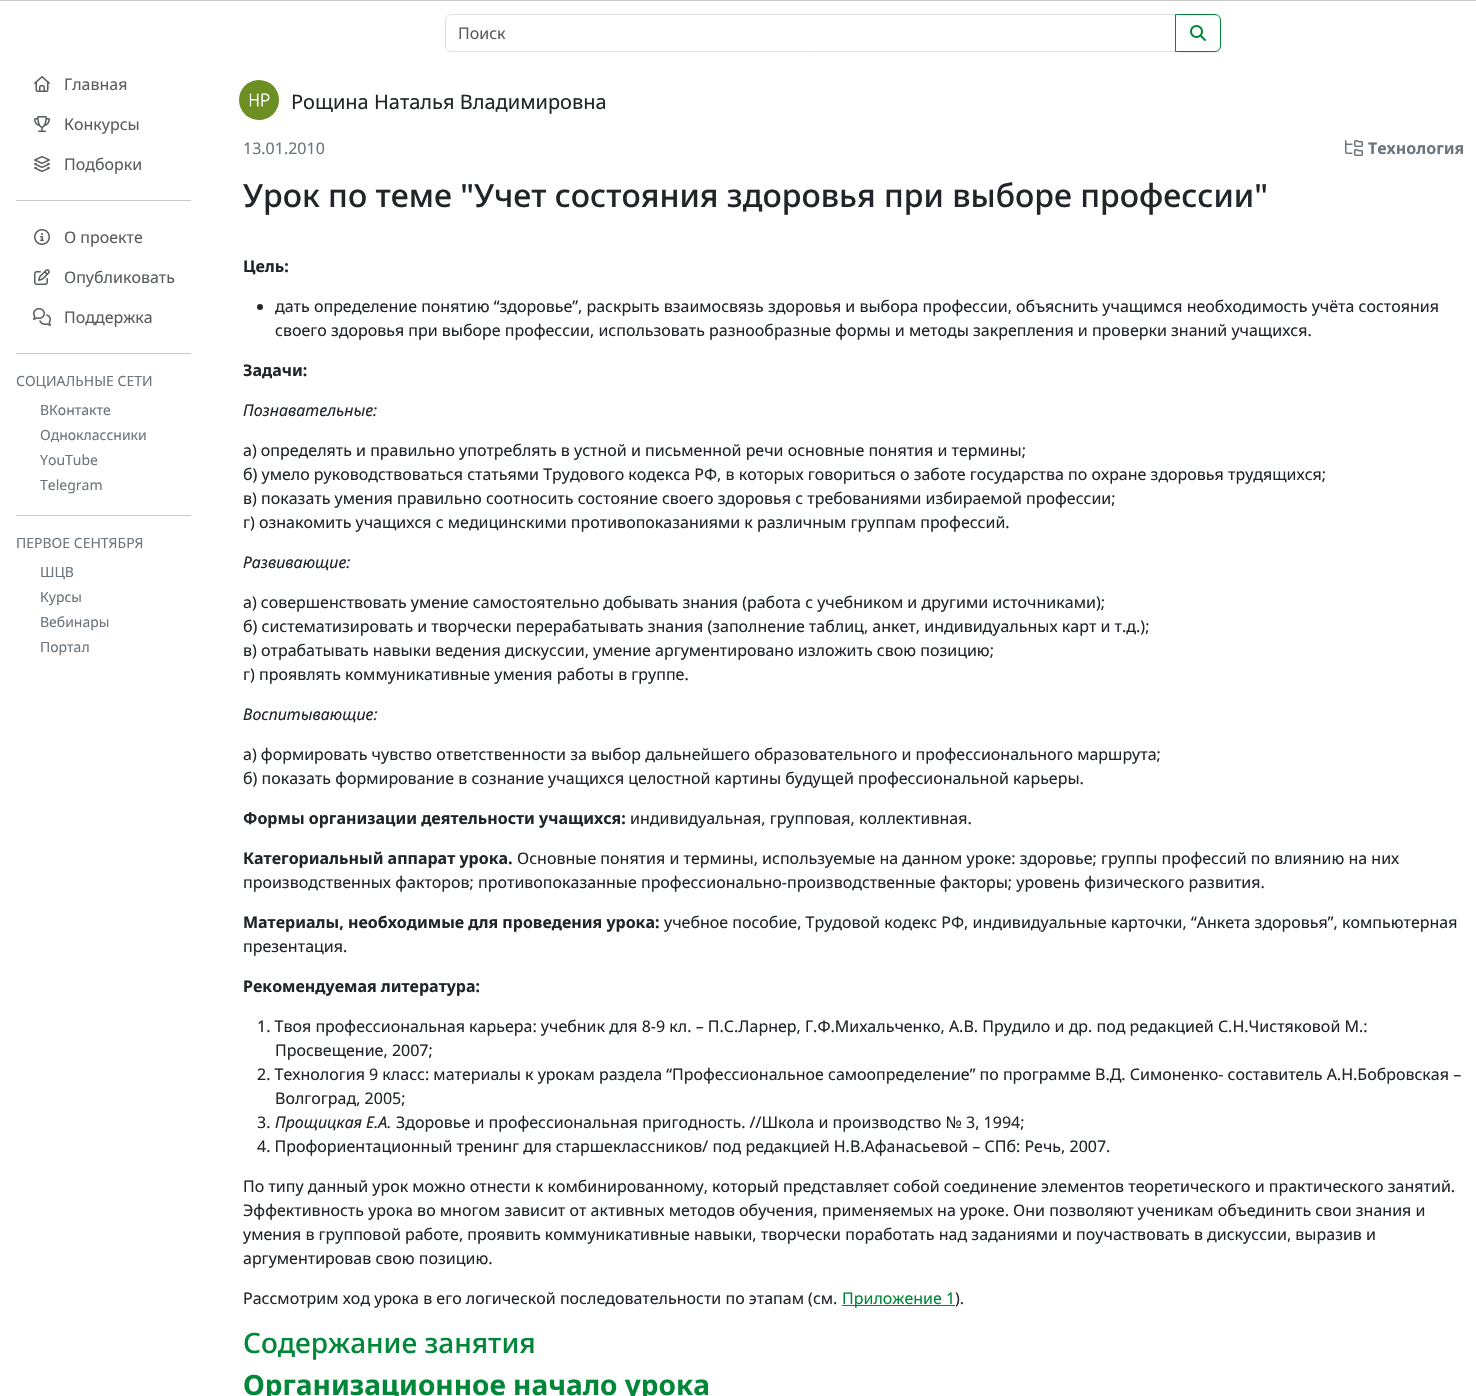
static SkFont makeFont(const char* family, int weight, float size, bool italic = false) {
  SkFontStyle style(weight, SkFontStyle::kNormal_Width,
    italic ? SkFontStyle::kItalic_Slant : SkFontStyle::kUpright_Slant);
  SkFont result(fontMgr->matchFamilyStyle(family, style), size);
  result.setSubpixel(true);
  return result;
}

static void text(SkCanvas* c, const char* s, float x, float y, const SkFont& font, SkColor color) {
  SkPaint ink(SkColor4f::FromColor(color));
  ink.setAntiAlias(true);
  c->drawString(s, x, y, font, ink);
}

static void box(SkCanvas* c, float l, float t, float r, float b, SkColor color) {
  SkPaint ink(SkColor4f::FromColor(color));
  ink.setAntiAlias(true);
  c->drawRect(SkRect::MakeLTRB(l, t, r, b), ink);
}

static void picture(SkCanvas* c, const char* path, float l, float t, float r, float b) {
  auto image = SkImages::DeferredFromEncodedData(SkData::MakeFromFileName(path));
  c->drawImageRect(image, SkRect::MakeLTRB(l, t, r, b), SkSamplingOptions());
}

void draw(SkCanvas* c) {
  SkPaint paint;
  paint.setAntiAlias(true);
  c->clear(0xffffffff);
  box(c, 0, 0, 1476, 1, 0xffc8c9ca);
  paint.setStyle(SkPaint::kStroke_Style);
  paint.setStrokeWidth(1);
  paint.setColor(0xffdee2e6);
  c->drawPath(SkPathBuilder().moveTo(451, 14.5f).lineTo(1175.5f, 14.5f).lineTo(1175.5f, 51.5f).lineTo(451, 51.5f).cubicTo(448, 51.5f, 445.5f, 49, 445.5f, 46).lineTo(445.5f, 20).cubicTo(445.5f, 17, 448, 14.5f, 451, 14.5f).close().detach(), paint);
  SkFont face1 = makeFont("Noto Sans", 400, 16);
  text(c, "Поиск", 458, 39, face1, 0xff595c5f);
  c->save();
  c->clipPath(SkPathBuilder(SkPathFillType::kEvenOdd).moveTo(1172, 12).lineTo(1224, 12).lineTo(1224, 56).lineTo(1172, 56).close().moveTo(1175, 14).lineTo(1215, 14).cubicTo(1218.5f, 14, 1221, 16.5f, 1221, 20).lineTo(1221, 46).cubicTo(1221, 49.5f, 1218.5f, 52, 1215, 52).lineTo(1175, 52).close().detach(), true);
  paint.setStyle(SkPaint::kFill_Style);
  paint.setColor(0x12000000);
  paint.setMaskFilter(SkMaskFilter::MakeBlur(kNormal_SkBlurStyle, 0.5f));
  c->drawRoundRect(SkRect::MakeLTRB(1175, 15, 1221, 53), 6, 6, paint);
  paint.setMaskFilter(nullptr);
  c->restore();
  paint.setStyle(SkPaint::kStroke_Style);
  paint.setColor(0xff008738);
  c->drawPath(SkPathBuilder().moveTo(1175.5f, 14.5f).lineTo(1215, 14.5f).cubicTo(1218, 14.5f, 1220.5f, 17, 1220.5f, 20).lineTo(1220.5f, 46).cubicTo(1220.5f, 49, 1218, 51.5f, 1215, 51.5f).lineTo(1175.5f, 51.5f).close().detach(), paint);
  picture(c, "img_01.png", 1190, 25, 1206, 41);
  picture(c, "img_02.png", 34, 76, 50, 92);
  text(c, "Главная", 64, 90, face1, 0xff595c5f);
  picture(c, "img_03.png", 34, 116, 50, 132);
  text(c, "Конкурсы", 64, 130, face1, 0xff595c5f);
  picture(c, "img_04.png", 34, 156, 50, 172);
  text(c, "Подборки", 64, 170, face1, 0xff595c5f);
  box(c, 16, 200, 191, 201, 0xffc8c9ca);
  picture(c, "img_05.png", 34, 229, 50, 245);
  text(c, "О проекте", 64, 243, face1, 0xff595c5f);
  picture(c, "img_06.png", 34, 269, 50, 285);
  text(c, "Опубликовать", 64, 283, face1, 0xff595c5f);
  picture(c, "img_07.png", 33, 308, 51, 326);
  text(c, "Поддержка", 64, 323, face1, 0xff595c5f);
  box(c, 16, 353, 191, 354, 0xffc8c9ca);
  SkFont face2 = makeFont("Noto Sans", 400, 14);
  text(c, "СОЦИАЛЬНЫЕ СЕТИ", 16, 386, face2, 0xff6c757d);
  text(c, "ВКонтакте", 40, 415, face2, 0xff6c757d);
  text(c, "Одноклассники", 40, 440, face2, 0xff6c757d);
  text(c, "YouTube", 40, 465, face2, 0xff6c757d);
  text(c, "Telegram", 40, 490, face2, 0xff6c757d);
  box(c, 16, 515, 191, 516, 0xffc8c9ca);
  text(c, "ПЕРВОЕ СЕНТЯБРЯ", 16, 548, face2, 0xff6c757d);
  text(c, "ШЦВ", 40, 577, face2, 0xff6c757d);
  text(c, "Курсы", 40, 602, face2, 0xff6c757d);
  text(c, "Вебинары", 40, 627, face2, 0xff6c757d);
  text(c, "Портал", 40, 652, face2, 0xff6c757d);
  picture(c, "img_08.png", 239, 80, 279, 120);
  SkFont face3 = makeFont("Noto Sans", 400, 20);
  text(c, "Рощина Наталья Владимировна", 291, 109, face3, 0xff212529);
  text(c, "13.01.2010", 243, 154, face1, 0xff6c757d);
  picture(c, "img_09.png", 1345, 140, 1363, 156);
  SkFont face4 = makeFont("Noto Sans", 700, 16);
  text(c, "Технология", 1368, 154, face4, 0xff6c757d);
  SkFont face5 = makeFont("Noto Sans", 500, 32);
  text(c, "Урок по теме \"Учет состояния здоровья при выборе профессии\"", 243, 207, face5, 0xff212529);
  text(c, "Цель:", 243, 272, face4, 0xff212529);
  paint.setStyle(SkPaint::kFill_Style);
  paint.setColor(0xff212529);
  c->drawCircle(260, 307, 3, paint);
  text(c, "дать определение понятию “здоровье”, раскрыть взаимосвязь здоровья и выбора профессии, объяснить учащимся необходимость учёта состояния", 275, 312, face1, 0xff212529);
  text(c, "своего здоровья при выборе профессии, использовать разнообразные формы и методы закрепления и проверки знаний учащихся.", 275, 336, face1, 0xff212529);
  text(c, "Задачи:", 243, 376, face4, 0xff212529);
  SkFont face6 = makeFont("Noto Sans", 400, 16, true);
  text(c, "Познавательные:", 243, 416, face6, 0xff212529);
  text(c, "а) определять и правильно употреблять в устной и письменной речи основные понятия и термины;", 243, 456, face1, 0xff212529);
  text(c, "б) умело руководствоваться статьями Трудового кодекса РФ, в которых говориться о заботе государства по охране здоровья трудящихся;", 243, 480, face1, 0xff212529);
  text(c, "в) показать умения правильно соотносить состояние своего здоровья с требованиями избираемой профессии;", 243, 504, face1, 0xff212529);
  text(c, "г) ознакомить учащихся с медицинскими противопоказаниями к различным группам профессий.", 243, 528, face1, 0xff212529);
  text(c, "Развивающие:", 243, 568, face6, 0xff212529);
  text(c, "а) совершенствовать умение самостоятельно добывать знания (работа с учебником и другими источниками);", 243, 608, face1, 0xff212529);
  text(c, "б) систематизировать и творчески перерабатывать знания (заполнение таблиц, анкет, индивидуальных карт и т.д.);", 243, 632, face1, 0xff212529);
  text(c, "в) отрабатывать навыки ведения дискуссии, умение аргументировано изложить свою позицию;", 243, 656, face1, 0xff212529);
  text(c, "г) проявлять коммуникативные умения работы в группе.", 243, 680, face1, 0xff212529);
  text(c, "Воспитывающие:", 243, 720, face6, 0xff212529);
  text(c, "а) формировать чувство ответственности за выбор дальнейшего образовательного и профессионального маршрута;", 243, 760, face1, 0xff212529);
  text(c, "б) показать формирование в сознание учащихся целостной картины будущей профессиональной карьеры.", 243, 784, face1, 0xff212529);
  text(c, "Формы организации деятельности учащихся:", 243, 824, face4, 0xff212529);
  text(c, "индивидуальная, групповая, коллективная.", 630, 824, face1, 0xff212529);
  text(c, "Категориальный аппарат урока.", 243, 864, face4, 0xff212529);
  text(c, "Основные понятия и термины, используемые на данном уроке: здоровье; группы профессий по влиянию на них", 517, 864, face1, 0xff212529);
  text(c, "производственных факторов; противопоказанные профессионально-производственные факторы; уровень физического развития.", 243, 888, face1, 0xff212529);
  text(c, "Материалы, необходимые для проведения урока:", 243, 928, face4, 0xff212529);
  text(c, "учебное пособие, Трудовой кодекс РФ, индивидуальные карточки, “Анкета здоровья”, компьютерная", 664, 928, face1, 0xff212529);
  text(c, "презентация.", 243, 952, face1, 0xff212529);
  text(c, "Рекомендуемая литература:", 243, 992, face4, 0xff212529);
  text(c, "1. Твоя профессиональная карьера: учебник для 8-9 кл. – П.С.Ларнер, Г.Ф.Михальченко, А.В. Прудило и др. под редакцией С.Н.Чистяковой М.:", 257, 1032, face1, 0xff212529);
  text(c, "Просвещение, 2007;", 275, 1056, face1, 0xff212529);
  text(c, "2. Технология 9 класс: материалы к урокам раздела “Профессиональное самоопределение” по программе В.Д. Симоненко- составитель А.Н.Бобровская –", 257, 1080, face1, 0xff212529);
  text(c, "Волгоград, 2005;", 275, 1104, face1, 0xff212529);
  text(c, "3.", 257, 1128, face1, 0xff212529);
  text(c, "Прощицкая Е.А.", 275, 1128, face6, 0xff212529);
  text(c, "Здоровье и профессиональная пригодность. //Школа и производство № 3, 1994;", 396, 1128, face1, 0xff212529);
  text(c, "4. Профориентационный тренинг для старшеклассников/ под редакцией Н.В.Афанасьевой – СПб: Речь, 2007.", 257, 1152, face1, 0xff212529);
  text(c, "По типу данный урок можно отнести к комбинированному, который представляет собой соединение элементов теоретического и практического занятий.", 243, 1192, face1, 0xff212529);
  text(c, "Эффективность урока во многом зависит от активных методов обучения, применяемых на уроке. Они позволяют ученикам объединить свои знания и", 243, 1216, face1, 0xff212529);
  text(c, "умения в групповой работе, проявить коммуникативные навыки, творчески поработать над заданиями и поучаствовать в дискуссии, выразив и", 243, 1240, face1, 0xff212529);
  text(c, "аргументировав свою позицию.", 243, 1264, face1, 0xff212529);
  text(c, "Рассмотрим ход урока в его логической последовательности по этапам (см.", 243, 1304, face1, 0xff212529);
  box(c, 842, 1305, 955, 1306, 0xff008738);
  text(c, "Приложение 1", 842, 1304, face1, 0xff008738);
  text(c, ").", 955, 1304, face1, 0xff212529);
  SkFont face7 = makeFont("Noto Sans", 500, 28);
  text(c, "Содержание занятия", 243, 1353, face7, 0xff008738);
  SkFont face8 = makeFont("Noto Sans", 700, 28);
  text(c, "Организационное начало урока", 243, 1395, face8, 0xff008738);
}
